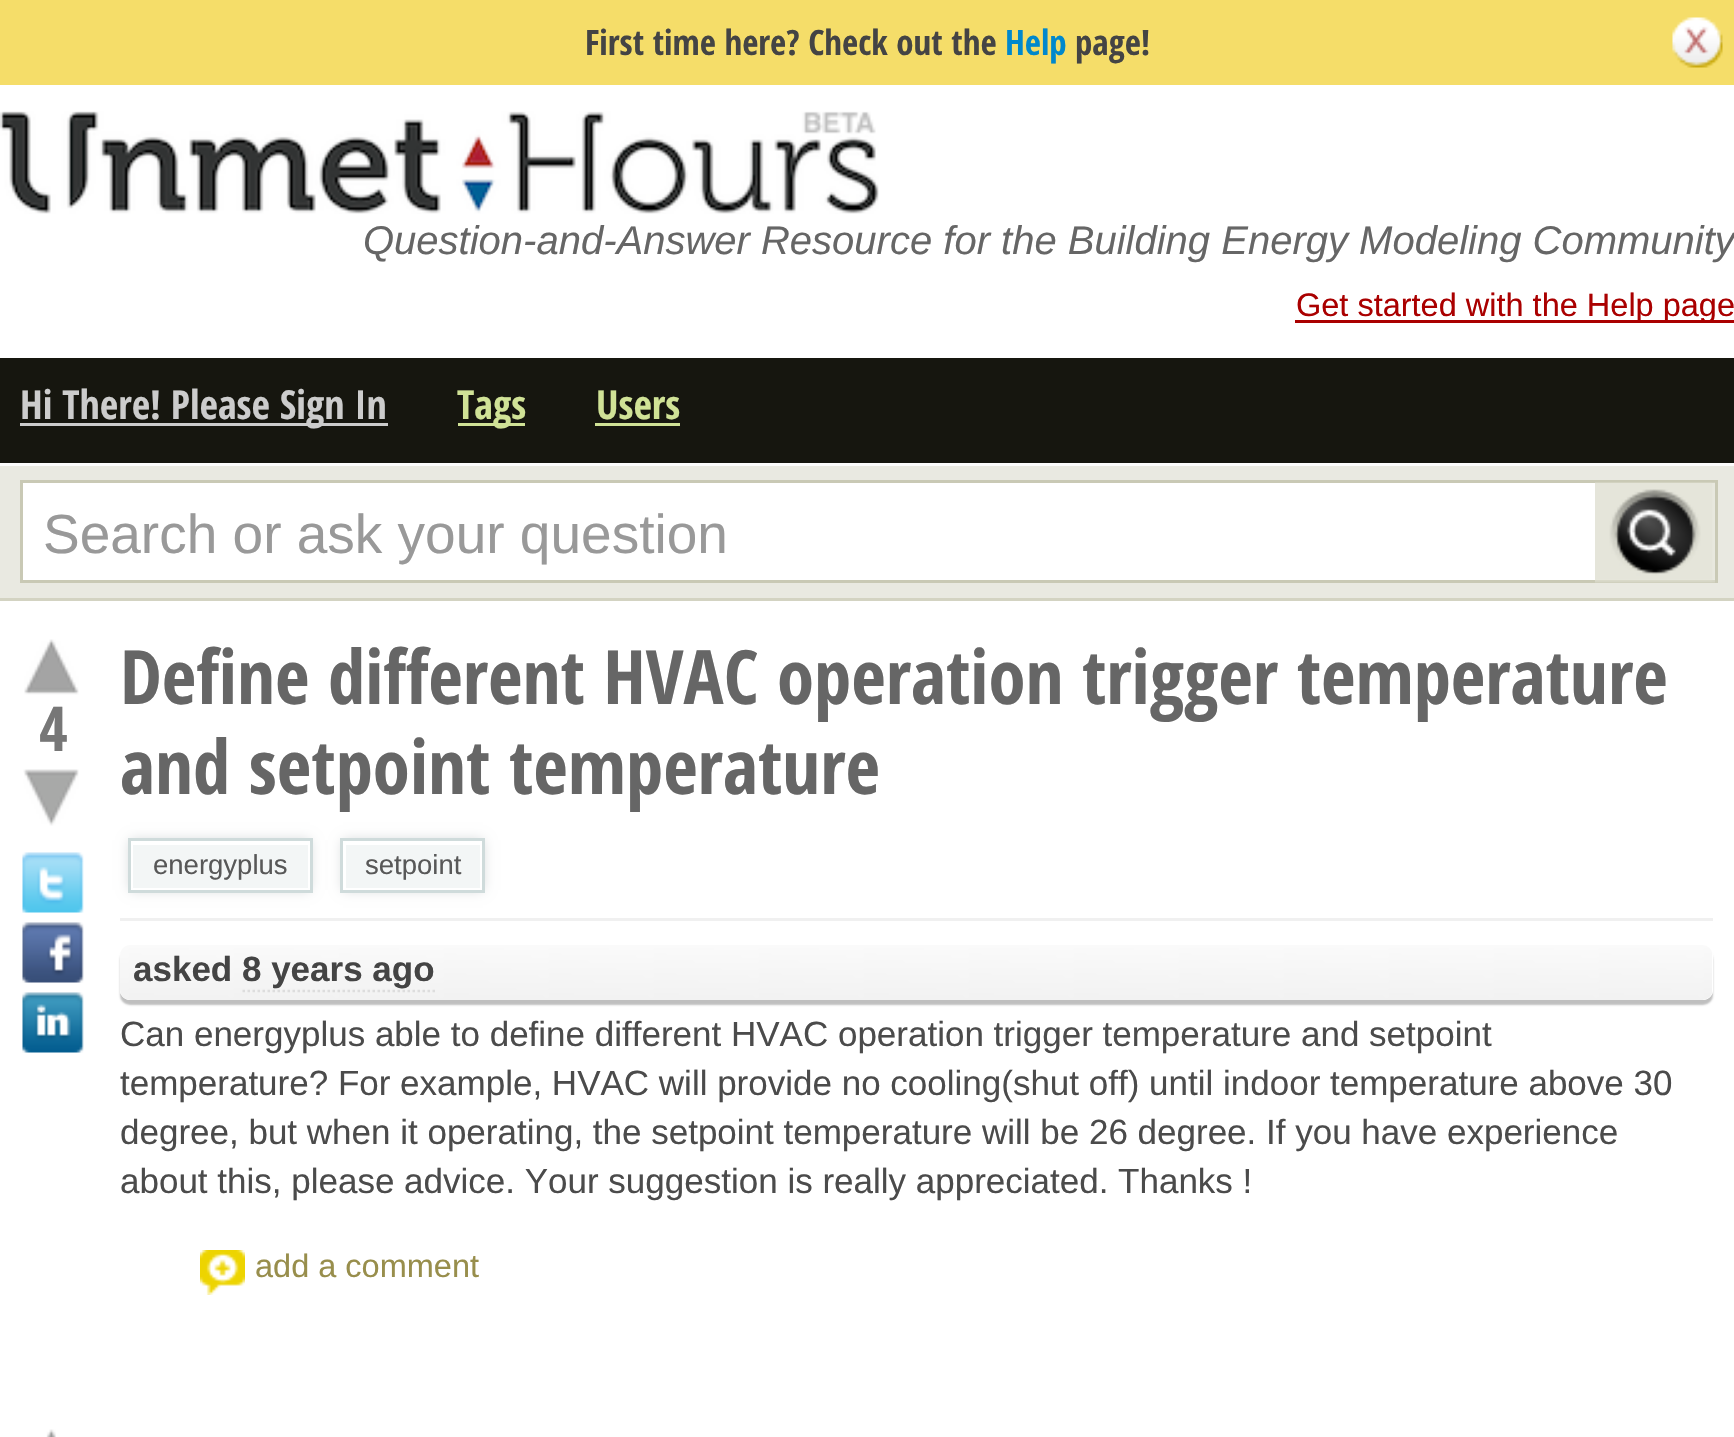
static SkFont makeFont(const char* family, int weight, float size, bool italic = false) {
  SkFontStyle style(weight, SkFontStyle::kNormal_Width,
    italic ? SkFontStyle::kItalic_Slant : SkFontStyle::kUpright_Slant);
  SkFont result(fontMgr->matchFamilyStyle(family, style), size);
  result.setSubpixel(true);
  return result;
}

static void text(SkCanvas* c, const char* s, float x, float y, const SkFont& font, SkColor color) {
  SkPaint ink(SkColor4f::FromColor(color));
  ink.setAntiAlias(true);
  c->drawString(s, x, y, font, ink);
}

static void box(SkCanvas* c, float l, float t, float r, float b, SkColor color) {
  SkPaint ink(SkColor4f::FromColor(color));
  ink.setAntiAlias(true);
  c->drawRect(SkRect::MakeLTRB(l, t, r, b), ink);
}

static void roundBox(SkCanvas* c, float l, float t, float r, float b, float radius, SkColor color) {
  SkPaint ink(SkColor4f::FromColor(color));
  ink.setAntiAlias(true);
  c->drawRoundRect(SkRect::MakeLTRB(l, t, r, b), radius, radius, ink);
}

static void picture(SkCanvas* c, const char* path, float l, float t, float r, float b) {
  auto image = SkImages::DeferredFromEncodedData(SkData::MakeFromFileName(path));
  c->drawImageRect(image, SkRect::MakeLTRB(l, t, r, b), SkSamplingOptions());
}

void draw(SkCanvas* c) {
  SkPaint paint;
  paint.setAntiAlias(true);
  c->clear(0xffffffff);
  box(c, 0, 0, 1734, 85, 0xfff5dd69);
  SkFont face1 = makeFont("Open Sans Condensed", 700, 35);
  text(c, "First time here? Check out the", 585, 55, face1, 0xff444444);
  text(c, "Help", 1005, 55, face1, 0xff0088cc);
  text(c, "page!", 1075, 55, face1, 0xff444444);
  picture(c, "img_01.png", 1672, 17, 1723, 68);
  picture(c, "img_02.png", 0, 111, 879, 214);
  SkFont face2 = makeFont("Liberation Sans", 400, 40, true);
  text(c, "Question-and-Answer Resource for the Building Energy Modeling Community", 363, 254, face2, 0xff666666);
  box(c, 1295, 320, 1734, 323, 0xffaa0000);
  SkFont face3 = makeFont("Liberation Sans", 400, 32.5f);
  text(c, "Get started with the Help page", 1296, 316, face3, 0xffaa0000);
  box(c, 0, 358, 1734, 463, 0xff16160f);
  box(c, 20, 423, 388, 426, 0xffcccccc);
  SkFont face4 = makeFont("Open Sans Condensed", 700, 40);
  text(c, "Hi There! Please Sign In", 20, 419, face4, 0xffcccccc);
  box(c, 458, 423, 525, 426, 0xffd0e296);
  text(c, "Tags", 457, 419, face4, 0xffd0e296);
  text(c, "Users", 596, 419, face4, 0xffd0e296);
  box(c, 595, 423, 680, 426, 0xffd0e296);
  box(c, 0, 466, 1734, 598, 0xffe9e9e1);
  box(c, 0, 463, 1734, 466, 0xfffcfcfc);
  box(c, 0, 598, 1734, 601, 0xffd3d3c2);
  paint.setColor(0xffffffff);
  c->drawRect(SkRect::MakeLTRB(21.5f, 481.5f, 1716.5f, 581.5f), paint);
  paint.setStyle(SkPaint::kStroke_Style);
  paint.setStrokeWidth(3);
  paint.setColor(0xffc9c9b5);
  c->drawRect(SkRect::MakeLTRB(21.5f, 481.5f, 1716.5f, 581.5f), paint);
  SkFont face5 = makeFont("Liberation Sans", 400, 55);
  text(c, "Search or ask your question", 43, 553, face5, 0xff999999);
  picture(c, "img_03.png", 1595, 482, 1715, 583);
  picture(c, "img_04.png", 24, 639, 79, 695);
  SkFont face6 = makeFont("Open Sans Condensed", 700, 62);
  text(c, "4", 39, 751, face6, 0xff777777);
  picture(c, "img_05.png", 23, 769, 79, 826);
  picture(c, "img_06.png", 22, 852, 84, 913);
  picture(c, "img_07.png", 22, 922, 84, 983);
  picture(c, "img_08.png", 22, 992, 84, 1053);
  SkFont face7 = makeFont("Open Sans Condensed", 700, 75);
  text(c, "Define different HVAC operation trigger temperature", 120, 704, face7, 0xff666666);
  text(c, "and setpoint temperature", 120, 794, face7, 0xff666666);
  c->save();
  c->clipPath(SkPathBuilder(SkPathFillType::kEvenOdd).moveTo(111, 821).lineTo(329, 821).lineTo(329, 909).lineTo(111, 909).close().moveTo(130, 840).lineTo(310, 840).lineTo(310, 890).lineTo(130, 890).close().detach(), true);
  paint.setStyle(SkPaint::kFill_Style);
  paint.setColor(0xffd3d6d7);
  paint.setMaskFilter(SkMaskFilter::MakeBlur(kNormal_SkBlurStyle, 6));
  c->drawRect(SkRect::MakeLTRB(130, 840, 310, 890), paint);
  paint.setMaskFilter(nullptr);
  c->restore();
  box(c, 133, 845, 308, 888, 0xfff3f6f6);
  paint.setStyle(SkPaint::kStroke_Style);
  paint.setColor(0xffcfdbdb);
  c->drawRect(SkRect::MakeLTRB(129.5f, 839.5f, 311.5f, 891.5f), paint);
  SkFont face8 = makeFont("Liberation Sans", 400, 27.5f);
  text(c, "energyplus", 153, 874, face8, 0xff585858);
  paint.setStyle(SkPaint::kFill_Style);
  paint.setColor(0xffd3d6d7);
  paint.setMaskFilter(SkMaskFilter::MakeBlur(kNormal_SkBlurStyle, 6));
  c->drawRect(SkRect::MakeLTRB(343, 840, 483, 890), paint);
  paint.setMaskFilter(nullptr);
  box(c, 346, 845, 480, 888, 0xfff3f6f6);
  box(c, 343, 841, 483, 845, 0xffffffff);
  box(c, 480, 840, 482, 890, 0xffffffff);
  box(c, 343, 888, 483, 890, 0xffffffff);
  box(c, 343, 840, 346, 890, 0xffffffff);
  paint.setStyle(SkPaint::kStroke_Style);
  paint.setColor(0xffcfdbdb);
  c->drawRect(SkRect::MakeLTRB(341.5f, 839.5f, 483.5f, 891.5f), paint);
  text(c, "setpoint", 365, 874, face8, 0xff585858);
  box(c, 120, 918, 1713, 921, 0xfff0f0f0);
  c->save();
  c->clipPath(SkPathBuilder(SkPathFillType::kEvenOdd).moveTo(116, 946).lineTo(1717, 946).lineTo(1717, 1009).lineTo(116, 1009).close().moveTo(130, 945).lineTo(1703, 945).cubicTo(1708.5f, 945, 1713, 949.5f, 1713, 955).lineTo(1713, 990).cubicTo(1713, 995.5f, 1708.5f, 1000, 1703, 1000).lineTo(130, 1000).cubicTo(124.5f, 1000, 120, 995.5f, 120, 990).lineTo(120, 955).cubicTo(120, 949.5f, 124.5f, 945, 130, 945).close().detach(), true);
  paint.setStyle(SkPaint::kFill_Style);
  paint.setColor(0xffbfbfbf);
  paint.setMaskFilter(SkMaskFilter::MakeBlur(kNormal_SkBlurStyle, 1));
  c->drawRoundRect(SkRect::MakeLTRB(120, 950, 1713, 1005), 10, 10, paint);
  paint.setMaskFilter(nullptr);
  c->restore();
  roundBox(c, 120, 945, 1713, 1000, 10, 0xffffffff);
  picture(c, "img_09.png", 120, 945, 1712, 1000);
  SkFont face9 = makeFont("Liberation Sans", 700, 35);
  text(c, "asked 8 years ago", 133, 981, face9, 0xff444444);
  paint.setStyle(SkPaint::kStroke_Style);
  paint.setStrokeWidth(2.5f);
  paint.setColor(0xffdddddd);
  paint.setPathEffect(SkDashPathEffect::Make({{2.5f, 2.5f}}, 0));
  c->drawPath(SkPathBuilder().moveTo(242.5f, 991).lineTo(435, 991).detach(), paint);
  paint.setPathEffect(nullptr);
  SkFont face10 = makeFont("Liberation Sans", 400, 35);
  text(c, "Can energyplus able to define different HVAC operation trigger temperature and setpoint", 120, 1046, face10, 0xff4b4b4b);
  text(c, "temperature? For example, HVAC will provide no cooling(shut off) until indoor temperature above 30", 120, 1095, face10, 0xff4b4b4b);
  text(c, "degree, but when it operating, the setpoint temperature will be 26 degree. If you have experience", 120, 1144, face10, 0xff4b4b4b);
  text(c, "about this, please advice. Your suggestion is really appreciated. Thanks !", 120, 1193, face10, 0xff4b4b4b);
  picture(c, "img_10.png", 200, 1250, 245, 1295);
  text(c, "add a comment", 255, 1277, face3, 0xff988e4c);
  picture(c, "img_11.png", 46, 1429, 56, 1437);
}
